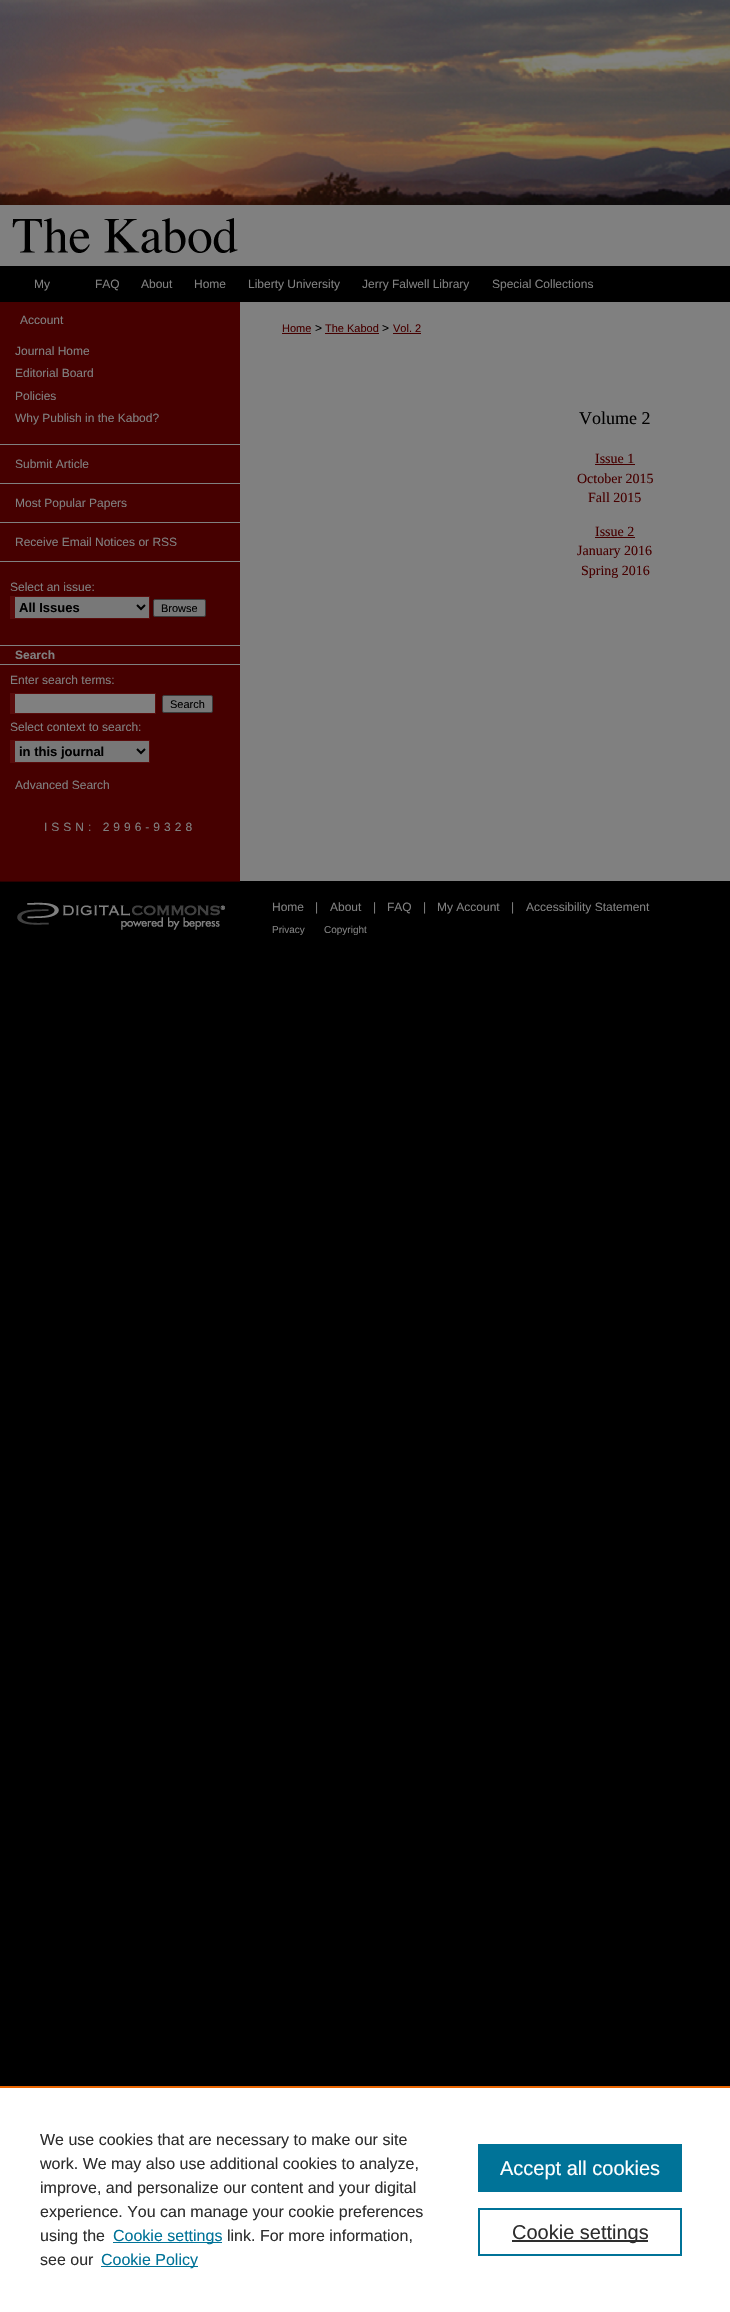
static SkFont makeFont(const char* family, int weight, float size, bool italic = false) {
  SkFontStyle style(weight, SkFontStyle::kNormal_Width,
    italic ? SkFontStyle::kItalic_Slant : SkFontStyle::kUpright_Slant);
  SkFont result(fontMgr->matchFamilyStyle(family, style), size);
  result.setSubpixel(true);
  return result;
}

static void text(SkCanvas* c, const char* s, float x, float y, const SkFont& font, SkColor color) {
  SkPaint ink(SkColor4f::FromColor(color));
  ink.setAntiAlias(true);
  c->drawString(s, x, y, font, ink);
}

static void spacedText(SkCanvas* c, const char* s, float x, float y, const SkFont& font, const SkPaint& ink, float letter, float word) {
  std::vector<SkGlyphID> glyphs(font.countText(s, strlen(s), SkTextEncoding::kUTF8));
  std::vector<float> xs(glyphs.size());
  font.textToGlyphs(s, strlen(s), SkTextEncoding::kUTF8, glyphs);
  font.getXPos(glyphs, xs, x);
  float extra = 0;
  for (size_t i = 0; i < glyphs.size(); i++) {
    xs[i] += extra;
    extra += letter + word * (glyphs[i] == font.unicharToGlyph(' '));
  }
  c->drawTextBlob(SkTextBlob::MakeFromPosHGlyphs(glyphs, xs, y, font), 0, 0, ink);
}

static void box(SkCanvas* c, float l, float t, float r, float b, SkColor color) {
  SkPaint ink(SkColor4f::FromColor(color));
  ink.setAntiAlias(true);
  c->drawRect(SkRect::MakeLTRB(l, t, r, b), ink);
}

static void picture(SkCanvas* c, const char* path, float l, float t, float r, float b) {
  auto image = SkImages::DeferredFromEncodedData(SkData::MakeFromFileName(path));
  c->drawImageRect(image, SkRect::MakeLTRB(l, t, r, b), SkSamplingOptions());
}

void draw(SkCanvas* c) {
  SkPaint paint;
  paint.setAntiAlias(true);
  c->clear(0xff000000);
  box(c, 0, 253, 730, 266, 0xff808080);
  picture(c, "img_01.png", 0, 0, 730, 253);
  SkFont face1 = makeFont("Liberation Sans", 400, 12);
  text(c, "My", 34, 288, face1, 0xff808080);
  box(c, 0, 302, 240, 881, 0xff460000);
  text(c, "Account", 20, 324, face1, 0xff808080);
  text(c, "FAQ", 95, 288, face1, 0xff808080);
  text(c, "About", 141, 288, face1, 0xff808080);
  text(c, "Home", 194, 288, face1, 0xff808080);
  text(c, "Liberty University", 248, 288, face1, 0xff808080);
  text(c, "Jerry Falwell Library", 362, 288, face1, 0xff808080);
  text(c, "Special Collections", 492, 288, face1, 0xff808080);
  box(c, 240, 302, 730, 881, 0xff808080);
  text(c, "Journal Home", 15, 355, face1, 0xff808080);
  text(c, "Editorial Board", 15, 377, face1, 0xff808080);
  text(c, "Policies", 15, 400, face1, 0xff808080);
  text(c, "Why Publish in the Kabod?", 15, 422, face1, 0xff808080);
  box(c, 0, 444, 240, 445, 0xff808080);
  box(c, 0, 483, 240, 484, 0xff808080);
  text(c, "Submit Article", 15, 468, face1, 0xff808080);
  box(c, 0, 522, 240, 523, 0xff808080);
  text(c, "Most Popular Papers", 15, 507, face1, 0xff808080);
  box(c, 0, 561, 240, 562, 0xff808080);
  text(c, "Receive Email Notices or RSS", 15, 546, face1, 0xff808080);
  text(c, "Select an issue:", 10, 591, face1, 0xff808080);
  box(c, 15, 597, 149, 618, 0xff787878);
  box(c, 10, 596, 150, 597, 0xff590c0c);
  box(c, 149, 596, 150, 619, 0xff590c0c);
  box(c, 10, 618, 150, 619, 0xff590c0c);
  box(c, 10, 596, 15, 619, 0xff590c0c);
  paint.setStyle(SkPaint::kStroke_Style);
  paint.setStrokeWidth(2);
  paint.setColor(0xff000000);
  c->drawPath(SkPathBuilder().moveTo(137, 605).lineTo(141, 609).lineTo(145, 605).detach(), paint);
  SkFont face2 = makeFont("Liberation Sans", 700, 13);
  text(c, "All Issues", 19, 612, face2, 0xff000000);
  paint.setStyle(SkPaint::kFill_Style);
  paint.setColor(0xff787878);
  c->drawRoundRect(SkRect::MakeLTRB(153.5f, 599.5f, 205.5f, 616.5f), 1.5f, 1.5f, paint);
  paint.setStyle(SkPaint::kStroke_Style);
  paint.setStrokeWidth(1);
  paint.setColor(0xff3b3b3b);
  c->drawRoundRect(SkRect::MakeLTRB(153.5f, 599.5f, 205.5f, 616.5f), 1.5f, 1.5f, paint);
  SkFont face3 = makeFont("Liberation Sans", 400, 11);
  text(c, "Browse", 161, 612, face3, 0xff000000);
  box(c, 0, 645, 240, 646, 0xff808080);
  box(c, 0, 664, 240, 665, 0xff808080);
  SkFont face4 = makeFont("Liberation Sans", 700, 12);
  text(c, "Search", 15, 659, face4, 0xff808080);
  text(c, "Enter search terms:", 10, 684, face1, 0xff808080);
  box(c, 15, 694, 155, 713, 0xff808080);
  box(c, 10, 693, 156, 694, 0xff590c0c);
  box(c, 155, 693, 156, 714, 0xff590c0c);
  box(c, 10, 713, 156, 714, 0xff590c0c);
  box(c, 10, 693, 15, 714, 0xff590c0c);
  paint.setStyle(SkPaint::kFill_Style);
  paint.setColor(0xff787878);
  c->drawRoundRect(SkRect::MakeLTRB(162.5f, 695.5f, 212.5f, 712.5f), 1.5f, 1.5f, paint);
  paint.setStyle(SkPaint::kStroke_Style);
  paint.setColor(0xff3b3b3b);
  c->drawRoundRect(SkRect::MakeLTRB(162.5f, 695.5f, 212.5f, 712.5f), 1.5f, 1.5f, paint);
  text(c, "Search", 170, 708, face3, 0xff000000);
  text(c, "Select context to search:", 10, 731, face1, 0xff808080);
  box(c, 15, 741, 149, 762, 0xff787878);
  box(c, 10, 740, 150, 741, 0xff590c0c);
  box(c, 149, 740, 150, 763, 0xff590c0c);
  box(c, 10, 762, 150, 763, 0xff590c0c);
  box(c, 10, 740, 15, 763, 0xff590c0c);
  paint.setStrokeWidth(2);
  paint.setColor(0xff000000);
  c->drawPath(SkPathBuilder().moveTo(137, 749).lineTo(141, 753).lineTo(145, 749).detach(), paint);
  text(c, "in this journal", 19, 756, face2, 0xff000000);
  text(c, "Advanced Search", 15, 789, face1, 0xff808080);
  paint.setStyle(SkPaint::kFill_Style);
  paint.setColor(0xff808080);
  spacedText(c, "ISSN: 2996-9328", 44, 831, face1, paint, 4, 0);
  text(c, "Home", 282, 332, face3, 0xff460000);
  box(c, 282, 333, 311, 334, 0xff460000);
  text(c, ">", 315, 332, face1, 0xff000000);
  text(c, "The Kabod", 325, 332, face3, 0xff460000);
  box(c, 325, 333, 379, 334, 0xff460000);
  text(c, ">", 382, 332, face1, 0xff000000);
  text(c, "Vol. 2", 393, 332, face3, 0xff460000);
  box(c, 393, 333, 421, 334, 0xff460000);
  SkFont face5 = makeFont("Liberation Serif", 400, 18);
  text(c, "Volume 2", 579, 424, face5, 0xff000000);
  SkFont face6 = makeFont("Liberation Serif", 400, 14);
  text(c, "Issue 1", 595, 463, face6, 0xff460000);
  box(c, 595, 464, 635, 465, 0xff460000);
  text(c, "October 2015", 577, 483, face6, 0xff460000);
  text(c, "Fall 2015", 588, 502, face6, 0xff460000);
  text(c, "Issue 2", 595, 536, face6, 0xff460000);
  box(c, 595, 537, 635, 538, 0xff460000);
  text(c, "January 2016", 577, 555, face6, 0xff460000);
  text(c, "Spring 2016", 581, 575, face6, 0xff460000);
  picture(c, "img_02.png", 0, 881, 240, 930);
  text(c, "Home", 272, 911, face1, 0xff808080);
  text(c, "|", 315, 911, face1, 0xff808080);
  text(c, "About", 330, 911, face1, 0xff808080);
  text(c, "|", 373, 911, face1, 0xff808080);
  text(c, "FAQ", 387, 911, face1, 0xff808080);
  text(c, "|", 423, 911, face1, 0xff808080);
  text(c, "My Account", 437, 911, face1, 0xff808080);
  text(c, "|", 511, 911, face1, 0xff808080);
  text(c, "Accessibility Statement", 526, 911, face1, 0xff808080);
  SkFont face7 = makeFont("Liberation Sans", 400, 10);
  text(c, "Privacy", 272, 933, face7, 0xff808080);
  text(c, "Copyright", 324, 933, face7, 0xff808080);
  box(c, 0, 2088, 730, 2312, 0xffffffff);
  box(c, 0, 2086, 730, 2088, 0xffeb6500);
  SkFont face8 = makeFont("Liberation Sans", 400, 16);
  text(c, "We use cookies that are necessary to make our site", 40, 2145, face8, 0xff2e2e2e);
  text(c, "work. We may also use additional cookies to analyze,", 40, 2169, face8, 0xff2e2e2e);
  text(c, "improve, and personalize our content and your digital", 40, 2193, face8, 0xff2e2e2e);
  text(c, "experience. You can manage your cookie preferences", 40, 2217, face8, 0xff2e2e2e);
  text(c, "using the", 40, 2241, face8, 0xff2e2e2e);
  box(c, 113, 2242, 222, 2243, 0xff007398);
  text(c, "Cookie settings", 113, 2241, face8, 0xff007398);
  text(c, "link. For more information,", 227, 2241, face8, 0xff2e2e2e);
  text(c, "see our", 40, 2265, face8, 0xff2e2e2e);
  box(c, 101, 2266, 198, 2267, 0xff007398);
  text(c, "Cookie Policy", 101, 2265, face8, 0xff007398);
  box(c, 478, 2144, 682, 2192, 0xff007398);
  SkFont face9 = makeFont("Liberation Sans", 400, 20);
  text(c, "Accept all cookies", 500, 2175, face9, 0xffffffff);
  paint.setStyle(SkPaint::kStroke_Style);
  paint.setColor(0xff007398);
  c->drawRect(SkRect::MakeLTRB(479, 2209, 681, 2255), paint);
  box(c, 512, 2240, 648, 2242, 0xff2e2e2e);
  text(c, "Cookie settings", 512, 2239, face9, 0xff2e2e2e);
}
